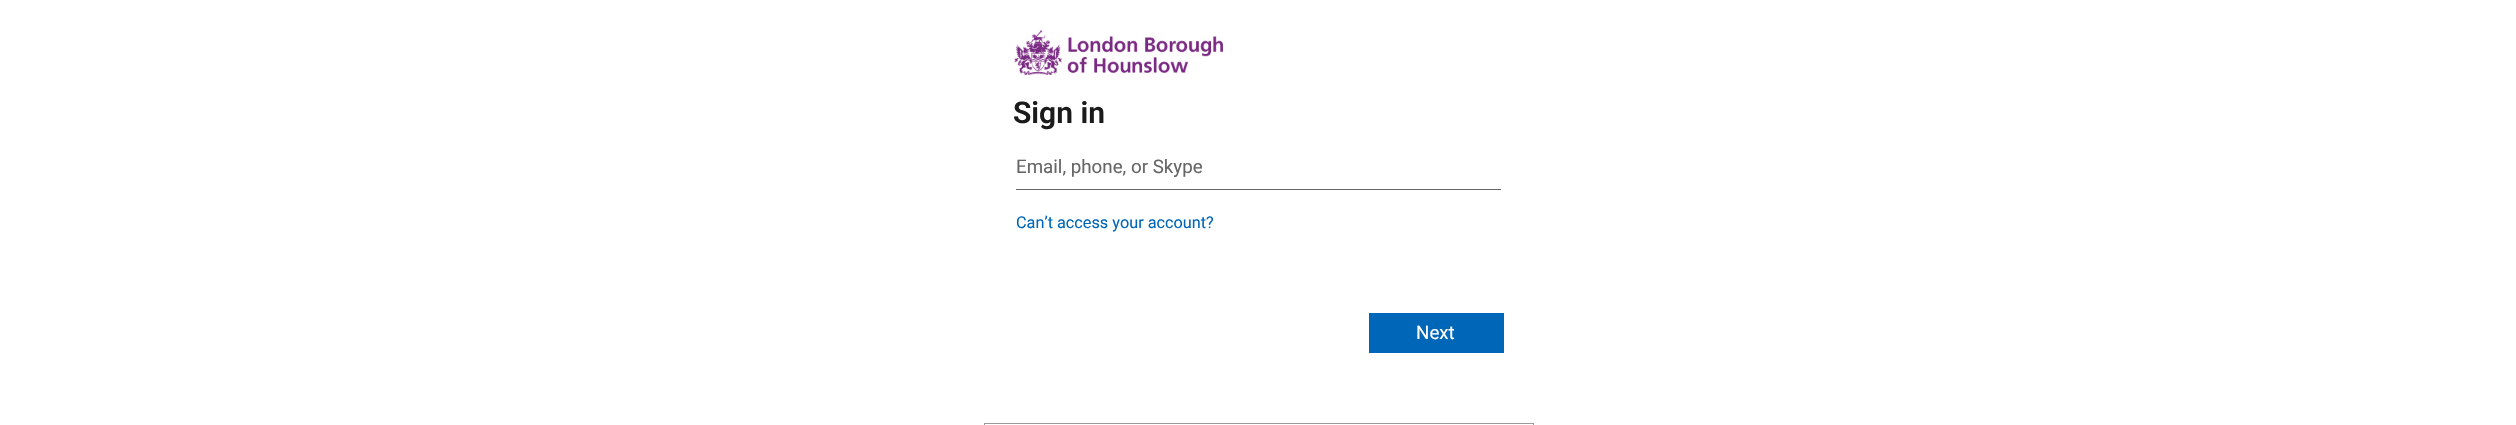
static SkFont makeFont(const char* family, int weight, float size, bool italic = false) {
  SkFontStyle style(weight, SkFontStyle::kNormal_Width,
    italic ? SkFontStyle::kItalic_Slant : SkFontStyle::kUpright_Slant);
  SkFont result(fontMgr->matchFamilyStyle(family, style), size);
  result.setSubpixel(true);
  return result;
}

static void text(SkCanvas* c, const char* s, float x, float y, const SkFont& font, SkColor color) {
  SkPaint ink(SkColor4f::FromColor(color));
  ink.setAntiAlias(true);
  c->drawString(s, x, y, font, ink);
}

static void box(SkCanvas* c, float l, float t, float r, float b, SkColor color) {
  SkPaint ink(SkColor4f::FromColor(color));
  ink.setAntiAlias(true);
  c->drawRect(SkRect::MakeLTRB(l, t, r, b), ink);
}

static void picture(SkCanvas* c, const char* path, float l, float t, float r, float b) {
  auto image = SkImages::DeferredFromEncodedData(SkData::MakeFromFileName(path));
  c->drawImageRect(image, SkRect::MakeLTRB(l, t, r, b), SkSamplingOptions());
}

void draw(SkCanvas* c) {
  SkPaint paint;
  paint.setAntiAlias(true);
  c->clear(0xffffffff);
  picture(c, "img_01.png", 1014, 30, 1223, 75);
  SkFont face1 = makeFont("Roboto", 600, 30);
  text(c, "Sign in", 1013, 123, face1, 0xff1b1b1b);
  box(c, 1016, 189, 1501, 190, 0xff666666);
  SkFont face2 = makeFont("Roboto", 400, 18.75f);
  text(c, "Email, phone, or Skype", 1016, 173, face2, 0xff666666);
  SkFont face3 = makeFont("Roboto", 400, 16.25f);
  text(c, "Can’t access your account?", 1016, 228, face3, 0xff0067b8);
  box(c, 1369, 313, 1504, 353, 0xff0067b8);
  text(c, "Next", 1416, 339, face2, 0xffffffff);
  paint.setStyle(SkPaint::kStroke_Style);
  paint.setStrokeWidth(1);
  paint.setColor(0xff999999);
  c->drawRect(SkRect::MakeLTRB(984.5f, 423.5f, 1533.5f, 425.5f), paint);
}
